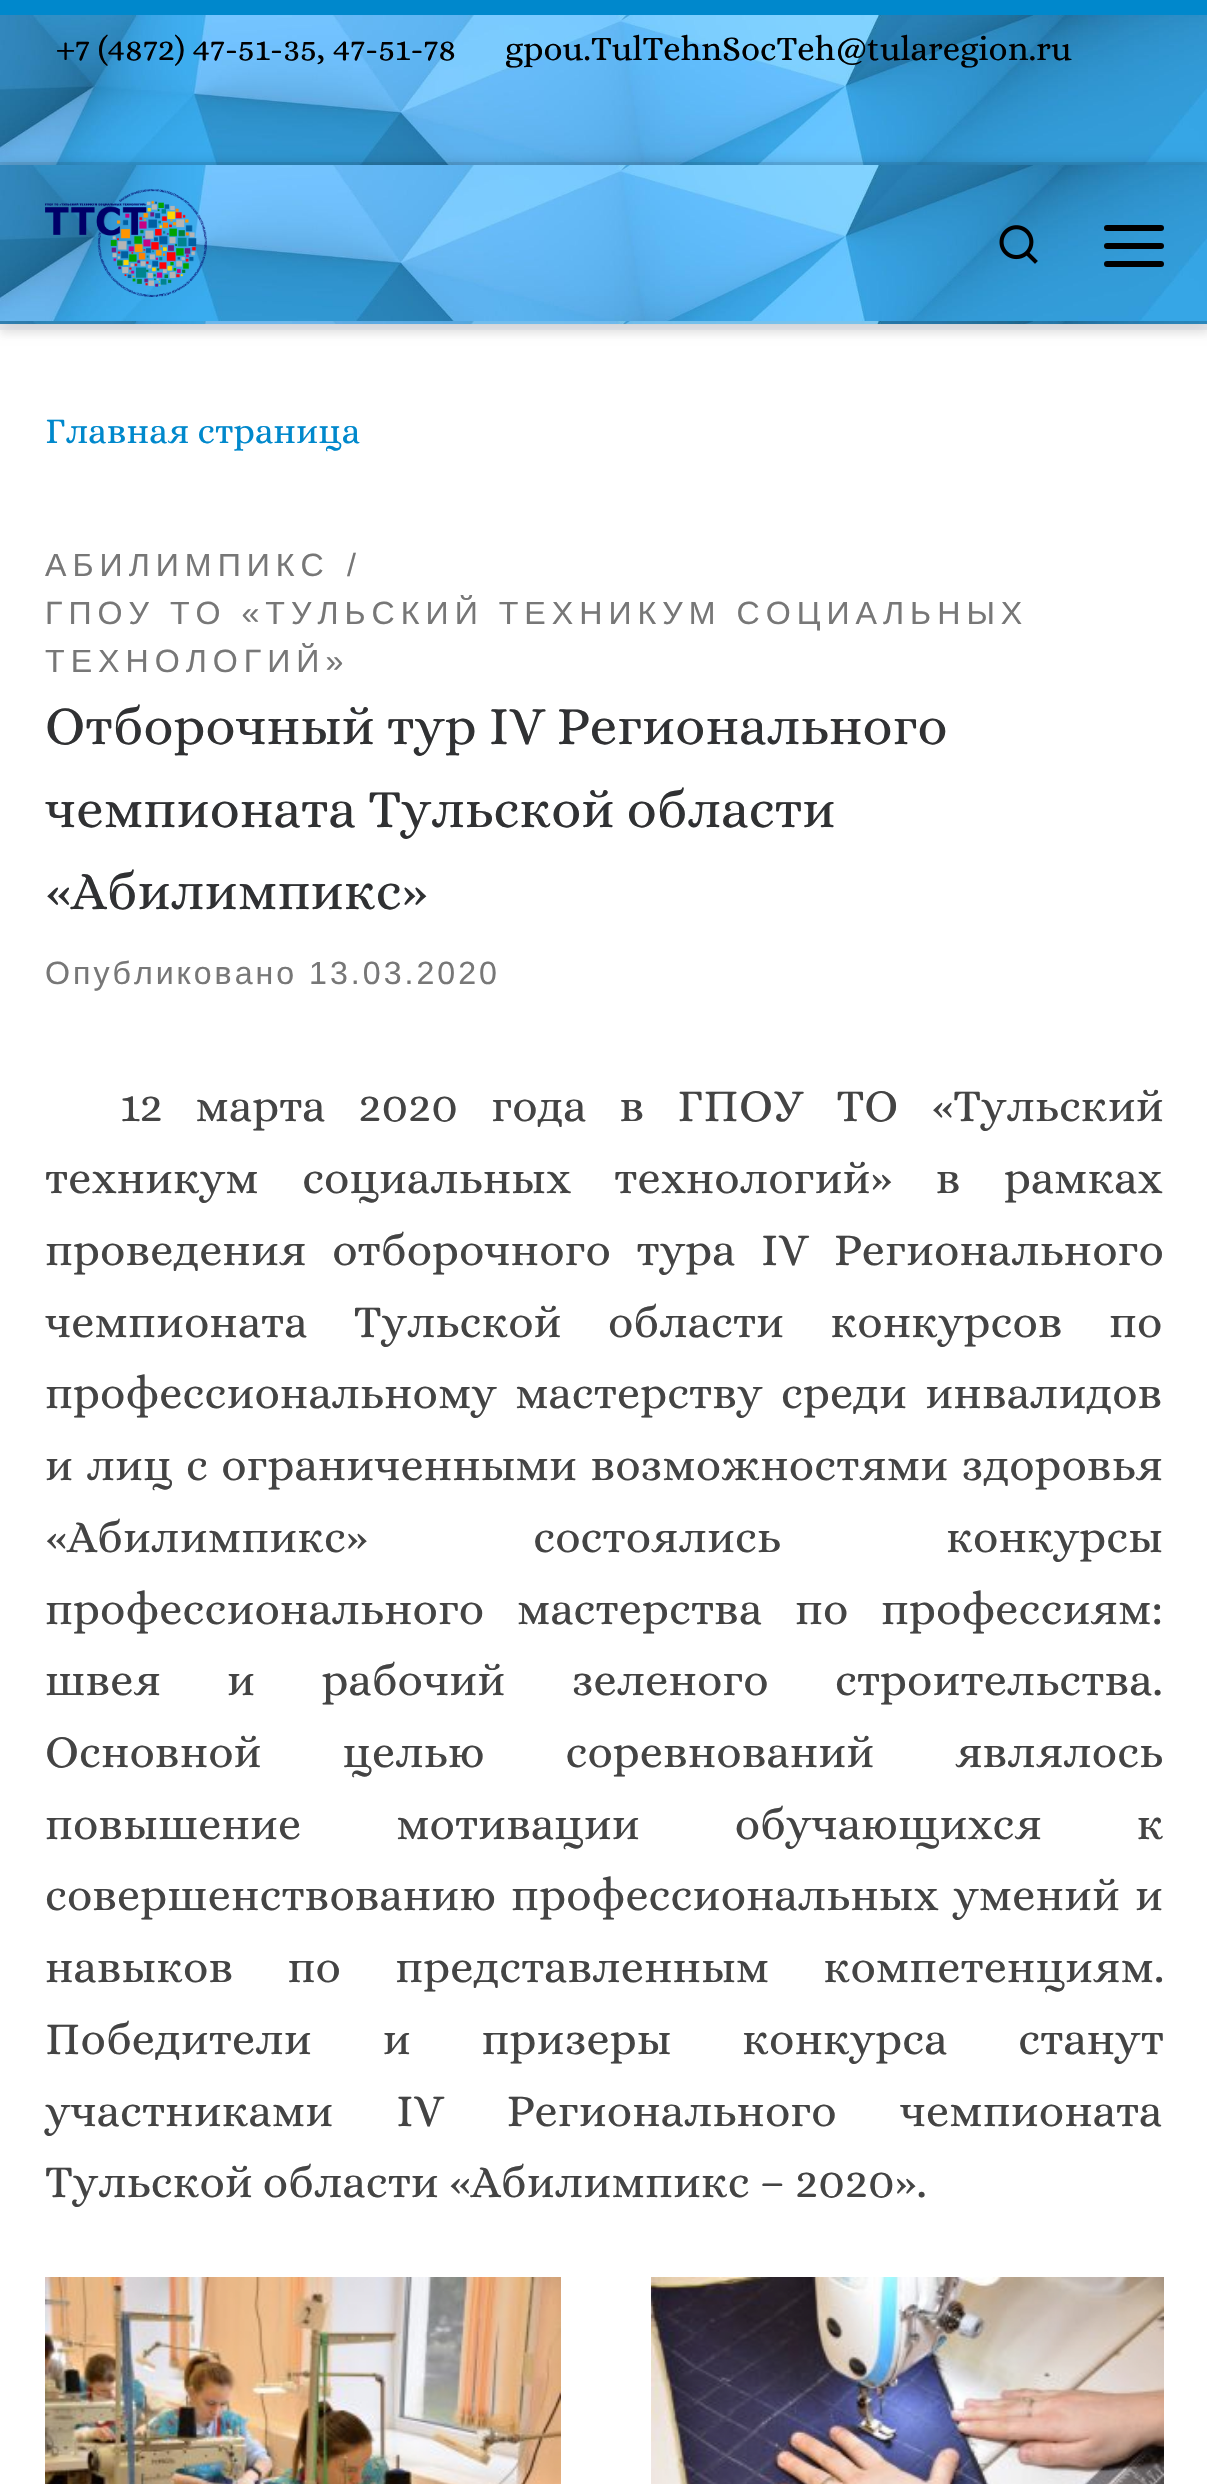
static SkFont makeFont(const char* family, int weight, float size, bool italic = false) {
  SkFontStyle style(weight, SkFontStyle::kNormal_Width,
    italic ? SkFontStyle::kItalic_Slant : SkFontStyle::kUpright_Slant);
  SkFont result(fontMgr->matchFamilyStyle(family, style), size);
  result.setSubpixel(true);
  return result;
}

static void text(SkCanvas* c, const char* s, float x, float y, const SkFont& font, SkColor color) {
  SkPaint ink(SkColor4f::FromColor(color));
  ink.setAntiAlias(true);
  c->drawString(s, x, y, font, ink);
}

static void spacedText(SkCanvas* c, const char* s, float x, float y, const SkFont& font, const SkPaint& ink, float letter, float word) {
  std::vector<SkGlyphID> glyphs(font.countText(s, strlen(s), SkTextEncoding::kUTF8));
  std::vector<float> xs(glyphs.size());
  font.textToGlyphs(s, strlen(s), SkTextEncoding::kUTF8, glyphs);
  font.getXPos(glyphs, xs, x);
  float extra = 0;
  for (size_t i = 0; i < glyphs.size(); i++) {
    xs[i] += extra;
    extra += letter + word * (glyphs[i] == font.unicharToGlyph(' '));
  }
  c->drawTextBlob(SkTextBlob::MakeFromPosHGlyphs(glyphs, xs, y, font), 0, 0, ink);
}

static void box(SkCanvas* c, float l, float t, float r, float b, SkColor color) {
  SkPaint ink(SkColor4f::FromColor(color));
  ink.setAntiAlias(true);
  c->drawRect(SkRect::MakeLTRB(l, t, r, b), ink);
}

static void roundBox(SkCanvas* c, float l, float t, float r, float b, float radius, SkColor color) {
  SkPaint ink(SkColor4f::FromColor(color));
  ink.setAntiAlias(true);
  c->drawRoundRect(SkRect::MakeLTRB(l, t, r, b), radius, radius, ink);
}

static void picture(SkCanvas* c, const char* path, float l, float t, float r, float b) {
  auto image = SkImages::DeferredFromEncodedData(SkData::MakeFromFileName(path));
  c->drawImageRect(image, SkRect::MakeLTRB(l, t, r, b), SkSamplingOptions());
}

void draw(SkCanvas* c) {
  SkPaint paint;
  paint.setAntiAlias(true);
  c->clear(0xffffffff);
  paint.setColor(0x14666666);
  paint.setMaskFilter(SkMaskFilter::MakeBlur(kNormal_SkBlurStyle, 3));
  c->drawRect(SkRect::MakeLTRB(0, 6, 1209, 336), paint);
  paint.setMaskFilter(nullptr);
  box(c, 0, 0, 1207, 15, 0xff0088cc);
  box(c, 0, 327, 1207, 330, 0xffe9eaee);
  picture(c, "img_01.png", 0, 15, 1207, 165);
  box(c, 0, 162, 1207, 165, 0x17000000);
  SkFont face1 = makeFont("Alice", 400, 34.75f);
  text(c, "+7 (4872) 47-51-35, 47-51-78", 56, 60, face1, 0xff000000);
  text(c, "gpou.TulTehnSocTeh@tularegion.ru", 505, 60, face1, 0xff000000);
  box(c, 0, 324, 1207, 327, 0xffecedf1);
  paint.setColor(0x33000000);
  paint.setMaskFilter(SkMaskFilter::MakeBlur(kNormal_SkBlurStyle, 7.5f));
  c->drawRect(SkRect::MakeLTRB(0, 165, 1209, 324), paint);
  paint.setMaskFilter(nullptr);
  picture(c, "img_02.png", 0, 165, 1207, 321);
  picture(c, "img_03.png", 45, 189, 207, 297);
  picture(c, "img_04.png", 999, 225, 1038, 264);
  roundBox(c, 1104, 225, 1164, 231, 3, 0xff000000);
  roundBox(c, 1104, 243, 1164, 249, 3, 0xff000000);
  roundBox(c, 1104, 261, 1164, 267, 3, 0xff000000);
  picture(c, "img_05.png", 0, 321, 1207, 324);
  SkFont face2 = makeFont("Alice", 400, 36.75f);
  text(c, "Главная страница", 45, 443, face2, 0xff0088cc);
  SkFont face3 = makeFont("Liberation Sans", 400, 32.15f);
  paint.setColor(0xff777777);
  spacedText(c, "АБИЛИМПИКС", 45, 576, face3, paint, 6, 0);
  spacedText(c, "/", 347, 576, face3, paint, 6, 0);
  spacedText(c, "ГПОУ ТО «ТУЛЬСКИЙ ТЕХНИКУМ СОЦИАЛЬНЫХ", 45, 624, face3, paint, 6, 0);
  spacedText(c, "ТЕХНОЛОГИЙ»", 45, 672, face3, paint, 6, 0);
  SkFont face4 = makeFont("Alice", 400, 54.8f);
  text(c, "Отборочный тур IV Регионального", 45, 744, face4, 0xff303133);
  text(c, "чемпионата Тульской области", 45, 827, face4, 0xff303133);
  text(c, "«Абилимпикс»", 45, 909, face4, 0xff303133);
  spacedText(c, "Опубликовано 13.03.2020", 45, 984, face3, paint, 3, 0);
  SkFont face5 = makeFont("Alice", 400, 46.25f);
  paint.setColor(0xff444444);
  spacedText(c, "12 марта 2020 года в ГПОУ ТО «Тульский", 120, 1121, face5, paint, 0, 22.75f);
  spacedText(c, "техникум социальных технологий» в рамках", 45, 1193, face5, paint, 0, 33);
  spacedText(c, "проведения отборочного тура IV Регионального", 45, 1265, face5, paint, 0, 15.5f);
  spacedText(c, "чемпионата Тульской области конкурсов по", 45, 1337, face5, paint, 0, 36);
  spacedText(c, "профессиональному мастерству среди инвалидов", 45, 1408, face5, paint, 0, 8);
  spacedText(c, "и лиц с ограниченными возможностями здоровья", 45, 1480, face5, paint, 0, 3);
  spacedText(c, "«Абилимпикс» состоялись конкурсы", 45, 1552, face5, paint, 0, 155);
  spacedText(c, "профессионального мастерства по профессиям:", 45, 1624, face5, paint, 0, 22.5f);
  spacedText(c, "швея и рабочий зеленого строительства.", 45, 1695, face5, paint, 0, 56);
  spacedText(c, "Основной целью соревнований являлось", 45, 1767, face5, paint, 0, 70.5f);
  spacedText(c, "повышение мотивации обучающихся к", 45, 1839, face5, paint, 0, 84.5f);
  spacedText(c, "совершенствованию профессиональных умений и", 45, 1910, face5, paint, 0, 4.5f);
  spacedText(c, "навыков по представленным компетенциям.", 45, 1982, face5, paint, 0, 44);
  spacedText(c, "Победители и призеры конкурса станут", 45, 2054, face5, paint, 0, 60.5f);
  spacedText(c, "участниками IV Регионального чемпионата", 45, 2126, face5, paint, 0, 53);
  spacedText(c, "Тульской области «Абилимпикс – 2020».", 45, 2197, face5, paint, 0, -0.5f);
  picture(c, "img_06.png", 45, 2277, 561, 2484);
  picture(c, "img_07.png", 651, 2277, 1164, 2484);
}
